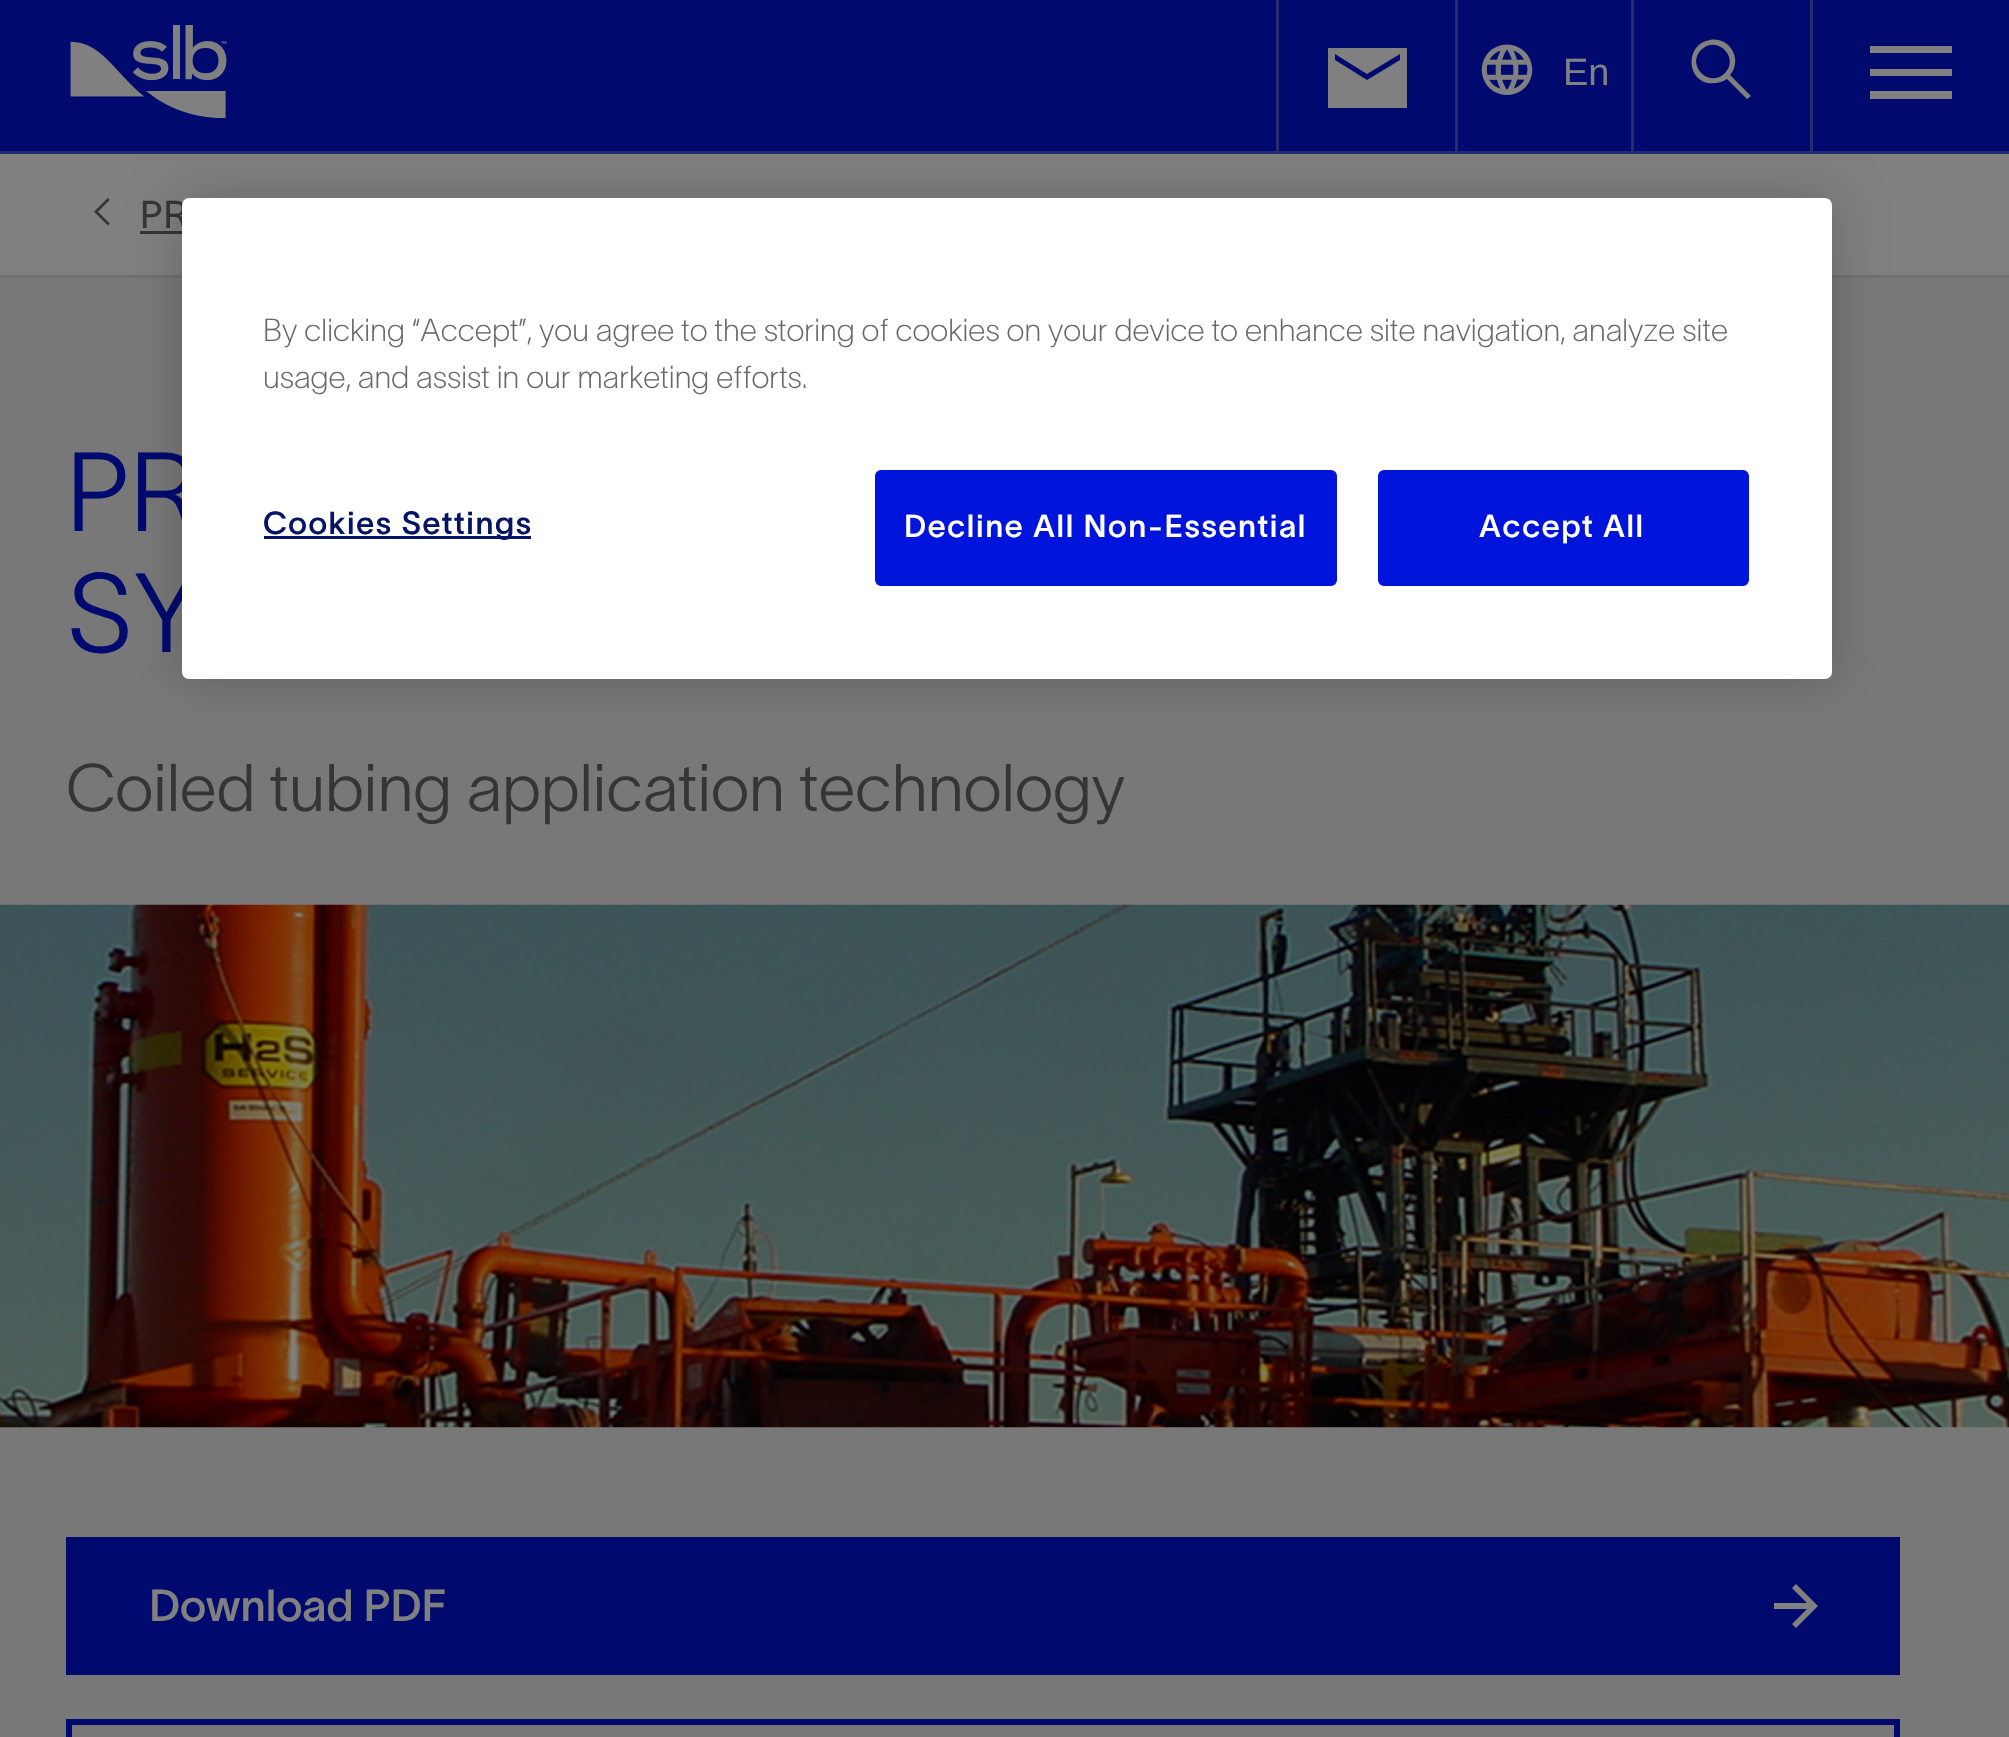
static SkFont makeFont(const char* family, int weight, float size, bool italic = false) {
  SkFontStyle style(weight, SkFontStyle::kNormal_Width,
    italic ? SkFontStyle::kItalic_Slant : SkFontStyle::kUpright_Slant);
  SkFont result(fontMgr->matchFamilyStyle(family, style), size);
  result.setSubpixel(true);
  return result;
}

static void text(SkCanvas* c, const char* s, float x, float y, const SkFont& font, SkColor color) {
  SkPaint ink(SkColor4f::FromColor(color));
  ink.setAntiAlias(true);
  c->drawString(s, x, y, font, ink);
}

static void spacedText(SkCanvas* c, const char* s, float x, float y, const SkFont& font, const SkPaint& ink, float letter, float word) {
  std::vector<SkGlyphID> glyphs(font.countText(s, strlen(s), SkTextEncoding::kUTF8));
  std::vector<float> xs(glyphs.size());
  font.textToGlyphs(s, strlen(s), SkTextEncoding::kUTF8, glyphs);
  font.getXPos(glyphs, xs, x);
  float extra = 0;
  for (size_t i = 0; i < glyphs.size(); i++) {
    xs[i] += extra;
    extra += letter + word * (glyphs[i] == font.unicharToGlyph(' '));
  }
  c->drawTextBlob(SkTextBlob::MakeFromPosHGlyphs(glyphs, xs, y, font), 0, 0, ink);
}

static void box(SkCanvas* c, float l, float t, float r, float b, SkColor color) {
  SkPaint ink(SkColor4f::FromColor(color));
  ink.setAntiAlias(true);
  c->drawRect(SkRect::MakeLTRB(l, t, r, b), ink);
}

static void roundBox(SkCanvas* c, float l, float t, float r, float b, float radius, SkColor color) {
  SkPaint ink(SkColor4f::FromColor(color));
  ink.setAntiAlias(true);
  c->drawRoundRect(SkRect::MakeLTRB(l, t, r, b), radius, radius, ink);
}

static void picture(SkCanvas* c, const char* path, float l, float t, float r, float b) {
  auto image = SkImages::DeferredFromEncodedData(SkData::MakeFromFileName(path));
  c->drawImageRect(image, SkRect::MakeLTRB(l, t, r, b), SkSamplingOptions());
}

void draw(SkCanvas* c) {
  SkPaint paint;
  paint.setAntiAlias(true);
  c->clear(0xff808080);
  box(c, 0, 0, 2009, 151, 0xff000a6e);
  box(c, 0, 151, 2009, 154, 0xff242b71);
  picture(c, "img_01.png", 70, 25, 227, 118);
  box(c, 1276, 0, 1279, 151, 0xff242b71);
  paint.setColor(0xff808080);
  c->drawPath(SkPathBuilder().moveTo(1328, 108).lineTo(1328, 48).lineTo(1407, 48).lineTo(1407, 108).close().moveTo(1367, 80).lineTo(1400, 60).lineTo(1400, 54).lineTo(1367, 74).lineTo(1335, 54).lineTo(1335, 60).close().detach(), paint);
  box(c, 1455, 0, 1458, 151, 0xff242b71);
  picture(c, "img_02.png", 1481, 44, 1533, 95);
  SkFont face1 = makeFont("Liberation Sans", 400, 38);
  text(c, "En", 1563, 85, face1, 0xff808080);
  box(c, 1631, 0, 1634, 151, 0xff242b71);
  c->drawPath(SkPathBuilder().moveTo(1725, 73).cubicTo(1740, 58, 1717, 34, 1701, 50).cubicTo(1686, 65, 1709, 89, 1725, 73).close().moveTo(1727, 79).cubicTo(1721, 83, 1714, 84, 1707, 83).cubicTo(1685, 77, 1687, 43, 1710, 40).cubicTo(1715, 39, 1720, 40, 1724, 42).cubicTo(1736, 49, 1739, 65, 1730, 75).lineTo(1751, 96).lineTo(1747, 99).close().detach(), paint);
  box(c, 1810, 0, 1813, 151, 0xff242b71);
  c->drawPath(SkPathBuilder().moveTo(1870, 99).lineTo(1870, 91).lineTo(1952, 91).lineTo(1952, 99).close().moveTo(1870, 76).lineTo(1870, 69).lineTo(1952, 69).lineTo(1952, 76).close().moveTo(1870, 53).lineTo(1870, 46).lineTo(1952, 46).lineTo(1952, 53).close().detach(), paint);
  picture(c, "img_03.png", 94, 198, 110, 226);
  SkFont face2 = makeFont("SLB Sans", 500, 38);
  paint.setColor(0xff363535);
  spacedText(c, "PR", 140, 228, face2, paint, 1, 0);
  box(c, 140, 231, 182, 234, 0xff363535);
  box(c, 0, 278, 2009, 1737, 0xff787878);
  box(c, 0, 275, 2009, 278, 0xff6e7171);
  SkFont face3 = makeFont("SLB Sans", 400, 110);
  text(c, "PR", 66, 531, face3, 0xff000a6e);
  text(c, "SY", 66, 652, face3, 0xff000a6e);
  SkFont face4 = makeFont("SLB Sans", 400, 66);
  text(c, "Coiled tubing application technology", 66, 811, face4, 0xff363535);
  picture(c, "img_04.png", 0, 904, 2009, 1428);
  box(c, 66, 1537, 1900, 1675, 0xff000a6e);
  SkFont face5 = makeFont("SLB Sans", 700, 44);
  text(c, "Download PDF", 149, 1621, face5, 0xff808080);
  paint.setColor(0xff808080);
  c->drawPath(SkPathBuilder().moveTo(1796, 1628).lineTo(1792, 1624).lineTo(1807, 1609).lineTo(1774, 1609).lineTo(1774, 1603).lineTo(1807, 1603).lineTo(1792, 1588).lineTo(1796, 1584).lineTo(1818, 1606).close().detach(), paint);
  paint.setStyle(SkPaint::kStroke_Style);
  paint.setStrokeWidth(6);
  paint.setColor(0xff000a6e);
  c->drawRect(SkRect::MakeLTRB(69, 1722, 1897, 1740), paint);
  paint.setStyle(SkPaint::kFill_Style);
  paint.setColor(0x33000000);
  paint.setMaskFilter(SkMaskFilter::MakeBlur(kNormal_SkBlurStyle, 25));
  c->drawRoundRect(SkRect::MakeLTRB(182, 198, 1832, 679), 7, 7, paint);
  paint.setMaskFilter(nullptr);
  roundBox(c, 182, 198, 1832, 679, 7, 0xffffffff);
  SkFont face6 = makeFont("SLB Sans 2", 400, 31.3f);
  text(c, "By clicking “Accept”, you agree to the storing of cookies on your device to enhance site navigation, analyze site", 263, 341, face6, 0xff696969);
  text(c, "usage, and assist in our marketing efforts.", 263, 388, face6, 0xff696969);
  box(c, 264, 536, 531, 539, 0xff051464);
  SkFont face7 = makeFont("SLB Sans", 700, 31.3f);
  paint.setColor(0xff051464);
  spacedText(c, "Cookies Settings", 263, 534, face7, paint, 1.6f, 0);
  paint.setColor(0xff0014dc);
  c->drawRoundRect(SkRect::MakeLTRB(876.5f, 471.5f, 1335.5f, 584.5f), 4.5f, 4.5f, paint);
  paint.setStyle(SkPaint::kStroke_Style);
  paint.setStrokeWidth(3);
  c->drawRoundRect(SkRect::MakeLTRB(876.5f, 471.5f, 1335.5f, 584.5f), 4.5f, 4.5f, paint);
  paint.setStyle(SkPaint::kFill_Style);
  paint.setColor(0xffffffff);
  spacedText(c, "Decline All Non-Essential", 904, 537, face7, paint, 1.6f, 0);
  paint.setColor(0xff0014dc);
  c->drawRoundRect(SkRect::MakeLTRB(1379.5f, 471.5f, 1747.5f, 584.5f), 4.5f, 4.5f, paint);
  paint.setStyle(SkPaint::kStroke_Style);
  c->drawRoundRect(SkRect::MakeLTRB(1379.5f, 471.5f, 1747.5f, 584.5f), 4.5f, 4.5f, paint);
  paint.setStyle(SkPaint::kFill_Style);
  paint.setColor(0xffffffff);
  spacedText(c, "Accept All", 1479, 537, face7, paint, 1.6f, 0);
}
